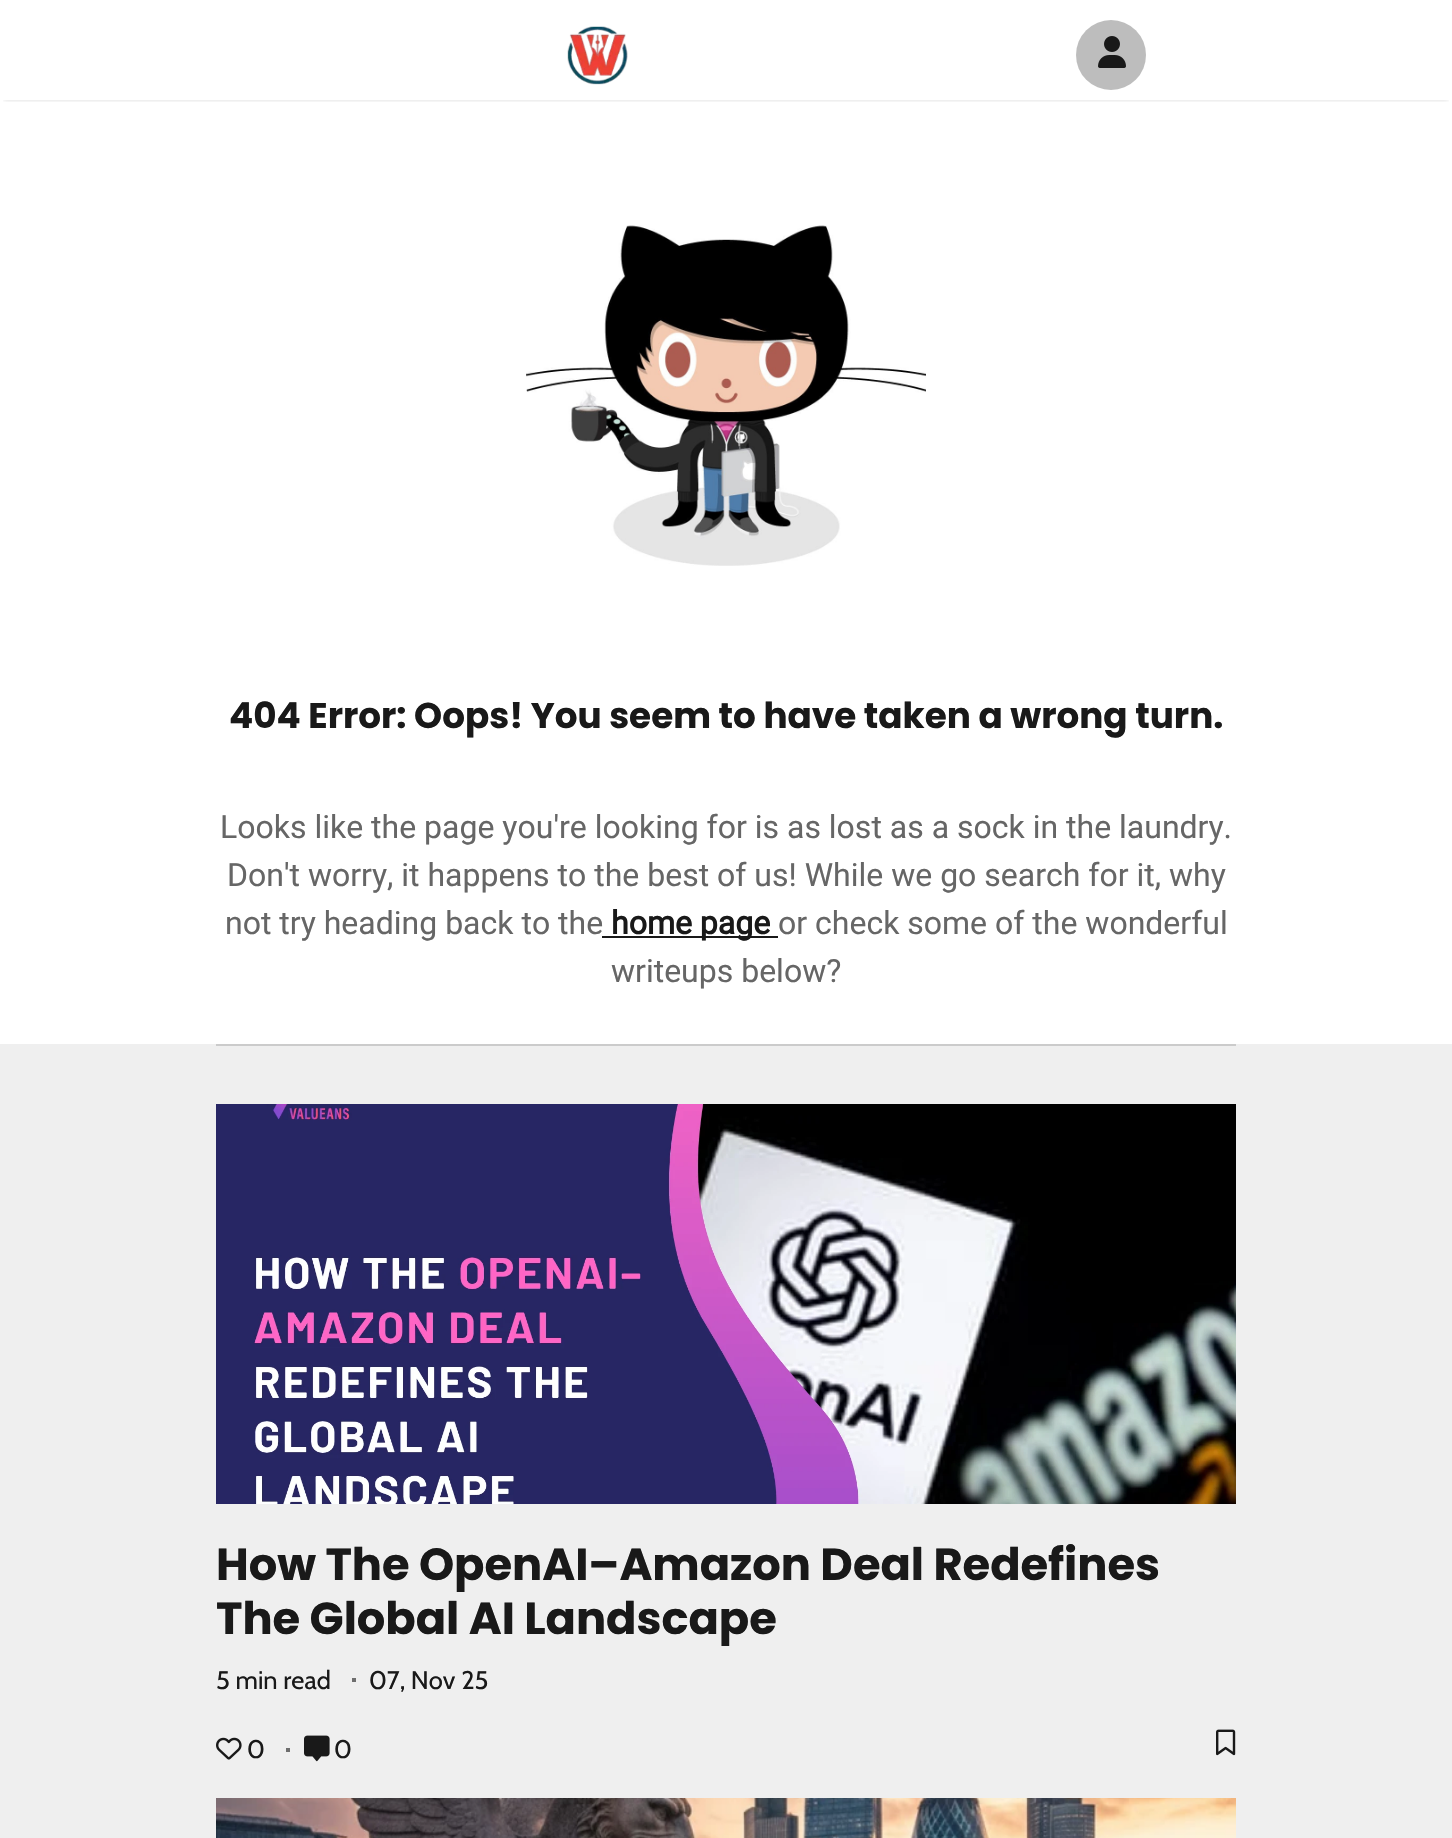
static SkFont makeFont(const char* family, int weight, float size, bool italic = false) {
  SkFontStyle style(weight, SkFontStyle::kNormal_Width,
    italic ? SkFontStyle::kItalic_Slant : SkFontStyle::kUpright_Slant);
  SkFont result(fontMgr->matchFamilyStyle(family, style), size);
  result.setSubpixel(true);
  return result;
}

static void text(SkCanvas* c, const char* s, float x, float y, const SkFont& font, SkColor color) {
  SkPaint ink(SkColor4f::FromColor(color));
  ink.setAntiAlias(true);
  c->drawString(s, x, y, font, ink);
}

static void spacedText(SkCanvas* c, const char* s, float x, float y, const SkFont& font, const SkPaint& ink, float letter, float word) {
  std::vector<SkGlyphID> glyphs(font.countText(s, strlen(s), SkTextEncoding::kUTF8));
  std::vector<float> xs(glyphs.size());
  font.textToGlyphs(s, strlen(s), SkTextEncoding::kUTF8, glyphs);
  font.getXPos(glyphs, xs, x);
  float extra = 0;
  for (size_t i = 0; i < glyphs.size(); i++) {
    xs[i] += extra;
    extra += letter + word * (glyphs[i] == font.unicharToGlyph(' '));
  }
  c->drawTextBlob(SkTextBlob::MakeFromPosHGlyphs(glyphs, xs, y, font), 0, 0, ink);
}

static void box(SkCanvas* c, float l, float t, float r, float b, SkColor color) {
  SkPaint ink(SkColor4f::FromColor(color));
  ink.setAntiAlias(true);
  c->drawRect(SkRect::MakeLTRB(l, t, r, b), ink);
}

static void picture(SkCanvas* c, const char* path, float l, float t, float r, float b) {
  auto image = SkImages::DeferredFromEncodedData(SkData::MakeFromFileName(path));
  c->drawImageRect(image, SkRect::MakeLTRB(l, t, r, b), SkSamplingOptions());
}

void draw(SkCanvas* c) {
  SkPaint paint;
  paint.setAntiAlias(true);
  c->clear(0xffffffff);
  c->save();
  c->clipRect(SkRect::MakeLTRB(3, 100, 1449, 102));
  paint.setColor(0x26000000);
  paint.setMaskFilter(SkMaskFilter::MakeBlur(kNormal_SkBlurStyle, 2));
  c->drawRect(SkRect::MakeLTRB(4, 8, 1448, 100), paint);
  paint.setMaskFilter(nullptr);
  c->restore();
  picture(c, "img_01.png", 567, 26, 628, 85);
  paint.setColor(0xffbdbdbd);
  c->drawCircle(1111, 55, 35, paint);
  picture(c, "img_02.png", 1098, 36, 1126, 68);
  picture(c, "img_03.png", 526, 225, 926, 566);
  SkFont face1 = makeFont("Poppins", 700, 35.75f);
  text(c, "404 Error: Oops! You seem to have taken a wrong turn.", 229, 728, face1, 0xff191919);
  SkFont face2 = makeFont("Roboto", 400, 32);
  text(c, "Looks like the page you're looking for is as lost as a sock in the laundry.", 220, 838, face2, 0xff666666);
  text(c, "Don't worry, it happens to the best of us! While we go search for it, why", 227, 886, face2, 0xff666666);
  text(c, "not try heading back to the", 225, 934, face2, 0xff666666);
  box(c, 602, 936, 778, 938, 0xff191919);
  SkFont face3 = makeFont("Roboto", 700, 32);
  text(c, "home page", 611, 934, face3, 0xff191919);
  text(c, "or check some of the wonderful", 778, 934, face2, 0xff666666);
  text(c, "writeups below?", 611, 982, face2, 0xff666666);
  box(c, 0, 1044, 1452, 1838, 0xffefefef);
  box(c, 216, 1044, 1236, 1046, 0xffcbcbcb);
  picture(c, "img_04.png", 216, 1104, 1236, 1504);
  SkFont face4 = makeFont("Poppins", 700, 44.8f);
  paint.setColor(0xff191919);
  spacedText(c, "How The OpenAI–Amazon Deal Redefines", 216, 1580, face4, paint, -0.05f, 0);
  spacedText(c, "The Global AI Landscape", 216, 1634, face4, paint, -0.05f, 0);
  SkFont face5 = makeFont("Cabin", 400, 25.5f);
  text(c, "5 min read", 216, 1689, face5, 0xff191919);
  box(c, 352, 1678, 356, 1682, 0xff6e6e6e);
  text(c, "07, Nov 25", 369, 1689, face5, 0xff191919);
  picture(c, "img_05.png", 216, 1737, 242, 1760);
  text(c, "0", 247, 1758, face5, 0xff191919);
  box(c, 286, 1748, 290, 1752, 0xff6e6e6e);
  picture(c, "img_06.png", 304, 1735, 330, 1762);
  text(c, "0", 334, 1758, face5, 0xff191919);
  picture(c, "img_07.png", 1216, 1729, 1236, 1756);
  picture(c, "img_08.png", 216, 1798, 1236, 1838);
}
